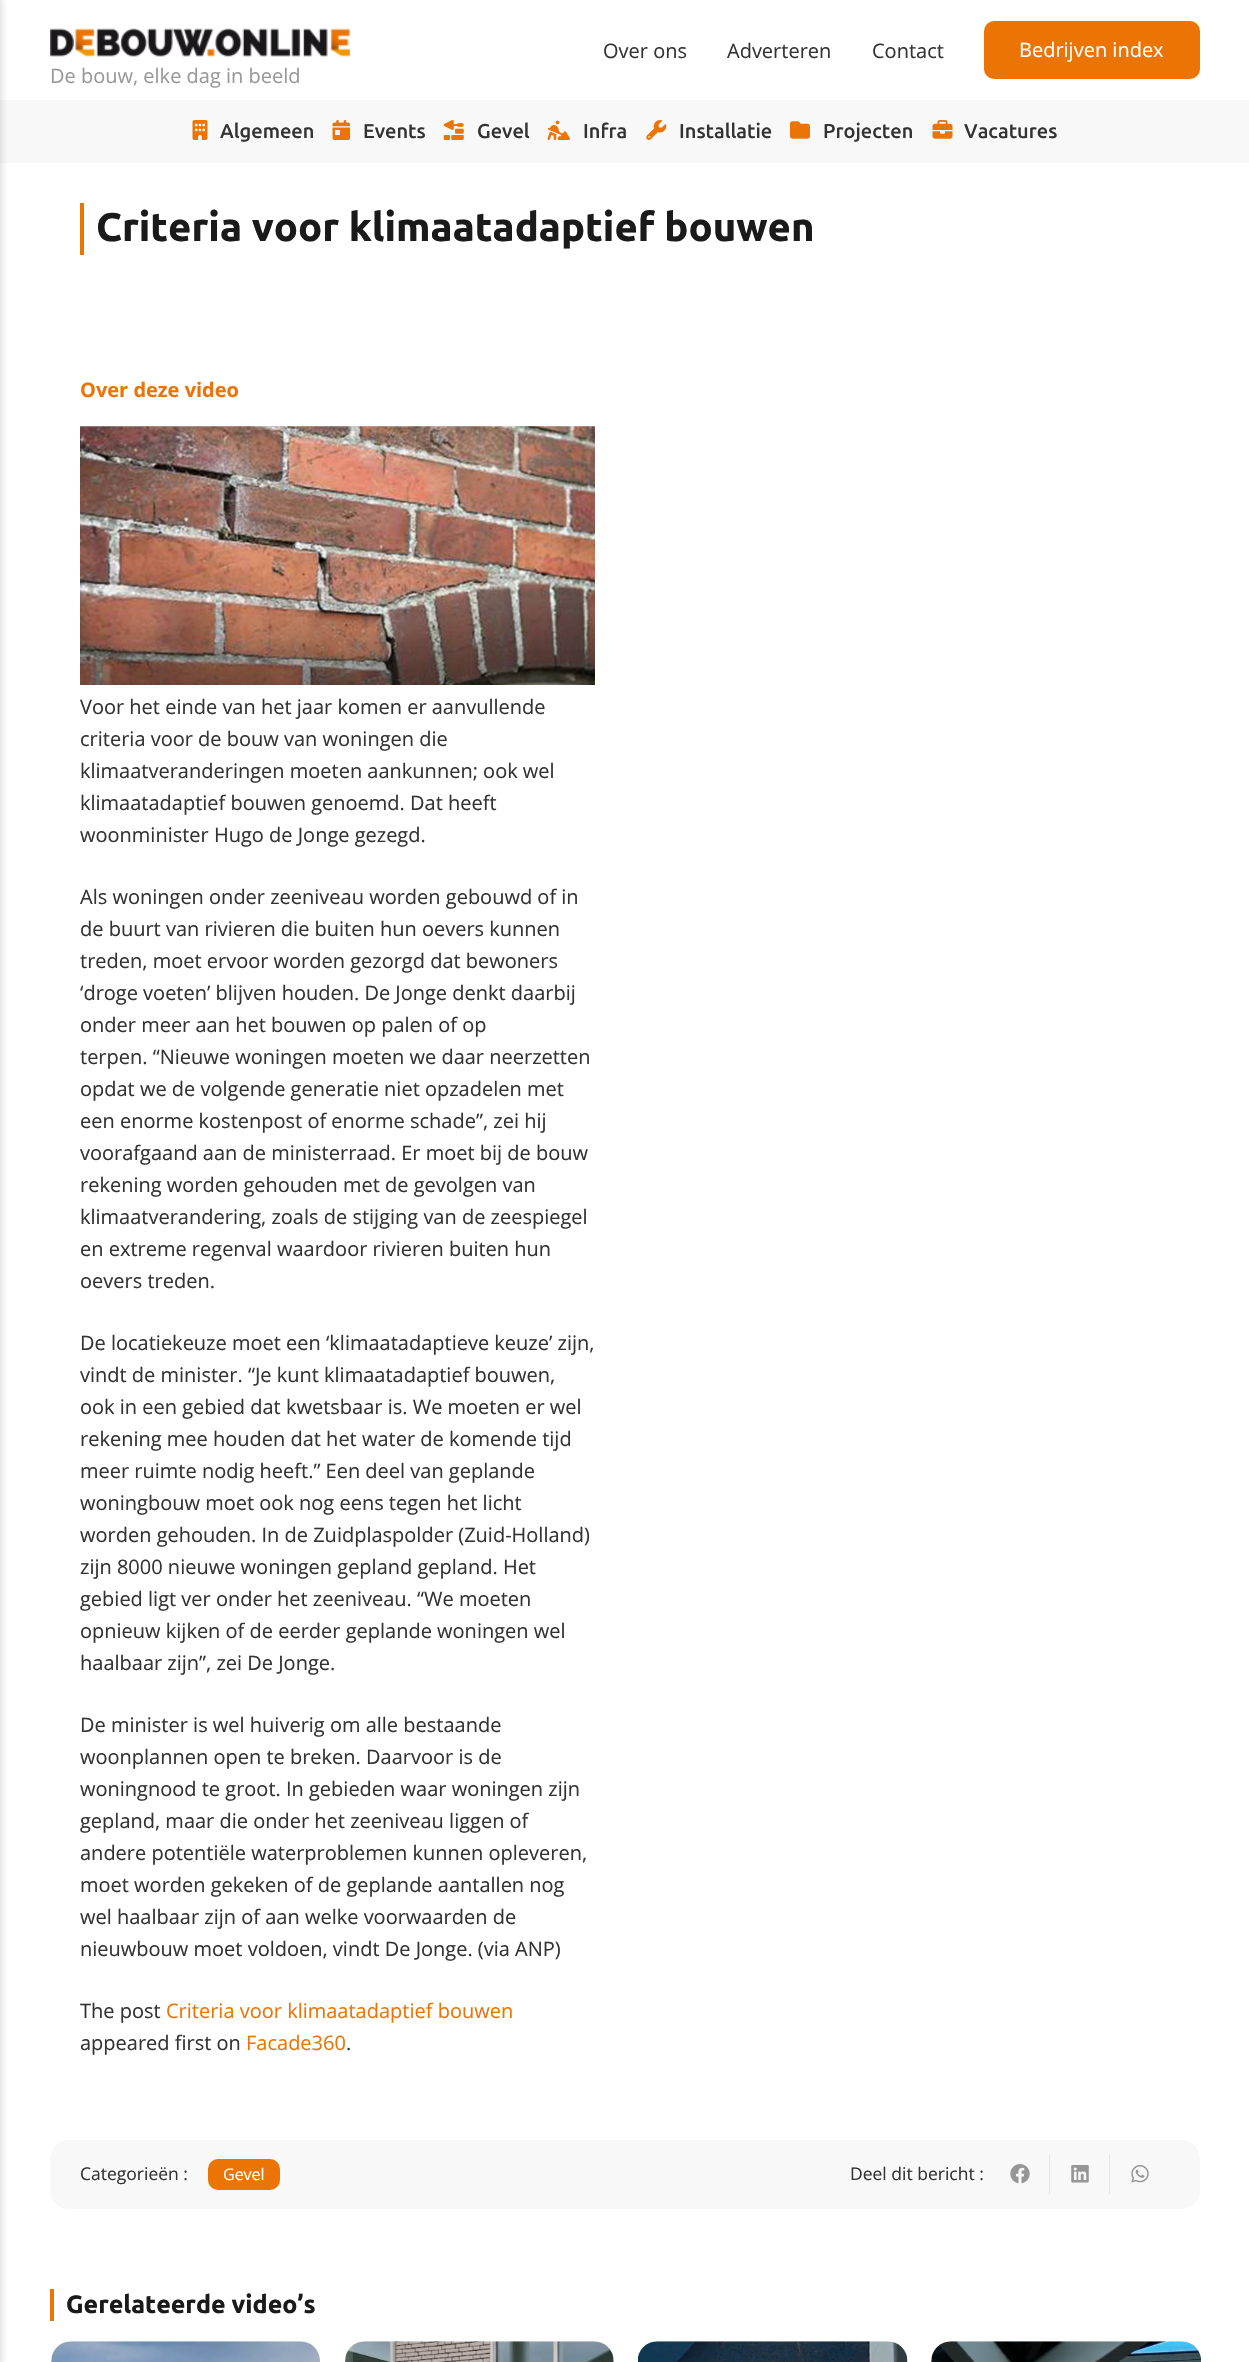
static SkFont makeFont(const char* family, int weight, float size, bool italic = false) {
  SkFontStyle style(weight, SkFontStyle::kNormal_Width,
    italic ? SkFontStyle::kItalic_Slant : SkFontStyle::kUpright_Slant);
  SkFont result(fontMgr->matchFamilyStyle(family, style), size);
  result.setSubpixel(true);
  return result;
}

static void text(SkCanvas* c, const char* s, float x, float y, const SkFont& font, SkColor color) {
  SkPaint ink(SkColor4f::FromColor(color));
  ink.setAntiAlias(true);
  c->drawString(s, x, y, font, ink);
}

static void box(SkCanvas* c, float l, float t, float r, float b, SkColor color) {
  SkPaint ink(SkColor4f::FromColor(color));
  ink.setAntiAlias(true);
  c->drawRect(SkRect::MakeLTRB(l, t, r, b), ink);
}

static void roundBox(SkCanvas* c, float l, float t, float r, float b, float radius, SkColor color) {
  SkPaint ink(SkColor4f::FromColor(color));
  ink.setAntiAlias(true);
  c->drawRoundRect(SkRect::MakeLTRB(l, t, r, b), radius, radius, ink);
}

static void picture(SkCanvas* c, const char* path, float l, float t, float r, float b) {
  auto image = SkImages::DeferredFromEncodedData(SkData::MakeFromFileName(path));
  c->drawImageRect(image, SkRect::MakeLTRB(l, t, r, b), SkSamplingOptions());
}

void draw(SkCanvas* c) {
  SkPaint paint;
  paint.setAntiAlias(true);
  c->clear(0xffffffff);
  box(c, 0, 100, 1249, 163, 0xfff8f8f8);
  paint.setColor(0x1a000000);
  paint.setMaskFilter(SkMaskFilter::MakeBlur(kNormal_SkBlurStyle, 2.5f));
  c->drawRect(SkRect::MakeLTRB(-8, -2, 3, 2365), paint);
  paint.setMaskFilter(nullptr);
  SkFont face1 = makeFont("Open Sans", 400, 20);
  text(c, "Over ons", 603, 58, face1, 0xff333333);
  text(c, "Adverteren", 727, 58, face1, 0xff333333);
  text(c, "Contact", 872, 58, face1, 0xff333333);
  roundBox(c, 984, 21, 1200, 79, 10, 0xffec7405);
  text(c, "Bedrijven index", 1019, 57, face1, 0xffffffff);
  picture(c, "img_01.png", 50, 28, 350, 57);
  text(c, "De bouw, elke dag in beeld", 50, 83, face1, 0xff999999);
  picture(c, "img_02.png", 192, 120, 208, 140);
  SkFont face2 = makeFont("Ubuntu Sans", 600, 20);
  text(c, "Algemeen", 220, 138, face2, 0xff333333);
  picture(c, "img_03.png", 332, 120, 350, 140);
  text(c, "Events", 363, 138, face2, 0xff333333);
  picture(c, "img_04.png", 443, 120, 464, 140);
  text(c, "Gevel", 477, 138, face2, 0xff333333);
  picture(c, "img_05.png", 547, 120, 570, 140);
  text(c, "Infra", 583, 138, face2, 0xff333333);
  picture(c, "img_06.png", 646, 120, 667, 140);
  text(c, "Installatie", 679, 138, face2, 0xff333333);
  picture(c, "img_07.png", 790, 121, 810, 139);
  text(c, "Projecten", 823, 138, face2, 0xff333333);
  picture(c, "img_08.png", 932, 120, 953, 139);
  text(c, "Vacatures", 964, 138, face2, 0xff333333);
  box(c, 80, 203, 84, 255, 0xffec7405);
  SkFont face3 = makeFont("Ubuntu Sans", 800, 40);
  text(c, "Criteria voor klimaatadaptief bouwen", 96, 241, face3, 0xff1a1a1a);
  SkFont face4 = makeFont("Open Sans", 700, 20);
  text(c, "Over deze video", 80, 397, face4, 0xffec7405);
  picture(c, "img_09.png", 80, 426, 595, 685);
  text(c, "Voor het einde van het jaar komen er aanvullende", 80, 714, face1, 0xff333333);
  text(c, "criteria voor de bouw van woningen die", 80, 746, face1, 0xff333333);
  text(c, "klimaatveranderingen moeten aankunnen; ook wel", 80, 778, face1, 0xff333333);
  text(c, "klimaatadaptief bouwen genoemd. Dat heeft", 80, 810, face1, 0xff333333);
  text(c, "woonminister Hugo de Jonge gezegd.", 80, 842, face1, 0xff333333);
  text(c, "Als woningen onder zeeniveau worden gebouwd of in", 80, 904, face1, 0xff333333);
  text(c, "de buurt van rivieren die buiten hun oevers kunnen", 80, 936, face1, 0xff333333);
  text(c, "treden, moet ervoor worden gezorgd dat bewoners", 80, 968, face1, 0xff333333);
  text(c, "‘droge voeten’ blijven houden. De Jonge denkt daarbij", 80, 1000, face1, 0xff333333);
  text(c, "onder meer aan het bouwen op palen of op", 80, 1032, face1, 0xff333333);
  text(c, "terpen. “Nieuwe woningen moeten we daar neerzetten", 80, 1064, face1, 0xff333333);
  text(c, "opdat we de volgende generatie niet opzadelen met", 80, 1096, face1, 0xff333333);
  text(c, "een enorme kostenpost of enorme schade”, zei hij", 80, 1128, face1, 0xff333333);
  text(c, "voorafgaand aan de ministerraad. Er moet bij de bouw", 80, 1160, face1, 0xff333333);
  text(c, "rekening worden gehouden met de gevolgen van", 80, 1192, face1, 0xff333333);
  text(c, "klimaatverandering, zoals de stijging van de zeespiegel", 80, 1224, face1, 0xff333333);
  text(c, "en extreme regenval waardoor rivieren buiten hun", 80, 1256, face1, 0xff333333);
  text(c, "oevers treden.", 80, 1288, face1, 0xff333333);
  text(c, "De locatiekeuze moet een ‘klimaatadaptieve keuze’ zijn,", 80, 1350, face1, 0xff333333);
  text(c, "vindt de minister. “Je kunt klimaatadaptief bouwen,", 80, 1382, face1, 0xff333333);
  text(c, "ook in een gebied dat kwetsbaar is. We moeten er wel", 80, 1414, face1, 0xff333333);
  text(c, "rekening mee houden dat het water de komende tijd", 80, 1446, face1, 0xff333333);
  text(c, "meer ruimte nodig heeft.” Een deel van geplande", 80, 1478, face1, 0xff333333);
  text(c, "woningbouw moet ook nog eens tegen het licht", 80, 1510, face1, 0xff333333);
  text(c, "worden gehouden. In de Zuidplaspolder (Zuid-Holland)", 80, 1542, face1, 0xff333333);
  text(c, "zijn 8000 nieuwe woningen gepland gepland. Het", 80, 1574, face1, 0xff333333);
  text(c, "gebied ligt ver onder het zeeniveau. “We moeten", 80, 1606, face1, 0xff333333);
  text(c, "opnieuw kijken of de eerder geplande woningen wel", 80, 1638, face1, 0xff333333);
  text(c, "haalbaar zijn”, zei De Jonge.", 80, 1670, face1, 0xff333333);
  text(c, "De minister is wel huiverig om alle bestaande", 80, 1732, face1, 0xff333333);
  text(c, "woonplannen open te breken. Daarvoor is de", 80, 1764, face1, 0xff333333);
  text(c, "woningnood te groot. In gebieden waar woningen zijn", 80, 1796, face1, 0xff333333);
  text(c, "gepland, maar die onder het zeeniveau liggen of", 80, 1828, face1, 0xff333333);
  text(c, "andere potentiële waterproblemen kunnen opleveren,", 80, 1860, face1, 0xff333333);
  text(c, "moet worden gekeken of de geplande aantallen nog", 80, 1892, face1, 0xff333333);
  text(c, "wel haalbaar zijn of aan welke voorwaarden de", 80, 1924, face1, 0xff333333);
  text(c, "nieuwbouw moet voldoen, vindt De Jonge. (via ANP)", 80, 1956, face1, 0xff333333);
  text(c, "The post", 80, 2018, face1, 0xff333333);
  text(c, "Criteria voor klimaatadaptief bouwen", 166, 2018, face1, 0xffec7405);
  text(c, "appeared first on", 80, 2050, face1, 0xff333333);
  text(c, "Facade360", 246, 2050, face1, 0xffec7405);
  text(c, ".", 346, 2050, face1, 0xff333333);
  roundBox(c, 50, 2140, 1200, 2209, 19, 0xfff8f8f8);
  SkFont face5 = makeFont("Open Sans", 400, 17.5f);
  text(c, "Categorieën :", 80, 2180, face5, 0xff333333);
  roundBox(c, 208, 2159, 280, 2190, 10, 0xffec7405);
  SkFont face6 = makeFont("Open Sans", 400, 16);
  text(c, "Gevel", 223, 2180, face6, 0xffffffff);
  text(c, "Deel dit bericht :", 850, 2180, face5, 0xff333333);
  box(c, 1049, 2154, 1050, 2194, 0xffe8e8e8);
  picture(c, "img_10.png", 1010, 2164, 1030, 2184);
  box(c, 1109, 2154, 1110, 2194, 0xffe8e8e8);
  picture(c, "img_11.png", 1071, 2165, 1089, 2183);
  picture(c, "img_12.png", 1131, 2165, 1149, 2183);
  box(c, 50, 2289, 54, 2321, 0xffec7405);
  SkFont face7 = makeFont("Ubuntu Sans", 800, 25);
  text(c, "Gerelateerde video’s", 66, 2313, face7, 0xff1a1a1a);
  {
    const SkColor colors[] = {0xffffffff, 0xff000000};
    const float stops[] = {0, 1};
    const SkPoint ends[] = {{186, 2341}, {186, 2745}};
    paint.setShader(SkGradientShader::MakeLinear(ends, colors, stops, 2, SkTileMode::kClamp));
    paint.setAlpha(255);
  }
  c->drawPath(SkPathBuilder().moveTo(71, 2341).lineTo(300, 2341).cubicTo(311, 2341, 320, 2350, 320, 2361).lineTo(320, 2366).cubicTo(320, 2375, 313, 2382, 304, 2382).lineTo(67, 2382).cubicTo(58, 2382, 51, 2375, 51, 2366).lineTo(51, 2361).cubicTo(51, 2350, 60, 2341, 71, 2341).close().detach(), paint);
  picture(c, "img_13.png", 51, 2341, 320, 2362);
  {
    const SkColor colors[] = {0xffffffff, 0xff000000};
    const float stops[] = {0, 1};
    const SkPoint ends[] = {{479, 2341}, {479, 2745}};
    paint.setShader(SkGradientShader::MakeLinear(ends, colors, stops, 2, SkTileMode::kClamp));
    paint.setAlpha(255);
  }
  c->drawPath(SkPathBuilder().moveTo(365, 2341).lineTo(594, 2341).cubicTo(605, 2341, 614, 2350, 614, 2361).lineTo(614, 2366).cubicTo(614, 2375, 607, 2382, 598, 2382).lineTo(361, 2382).cubicTo(352, 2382, 345, 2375, 345, 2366).lineTo(345, 2361).cubicTo(345, 2350, 354, 2341, 365, 2341).close().detach(), paint);
  picture(c, "img_14.png", 345, 2341, 614, 2362);
  {
    const SkColor colors[] = {0xffffffff, 0xff000000};
    const float stops[] = {0, 1};
    const SkPoint ends[] = {{773, 2341}, {773, 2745}};
    paint.setShader(SkGradientShader::MakeLinear(ends, colors, stops, 2, SkTileMode::kClamp));
    paint.setAlpha(255);
  }
  c->drawPath(SkPathBuilder().moveTo(658, 2341).lineTo(888, 2341).cubicTo(899, 2341, 908, 2350, 908, 2361).lineTo(908, 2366).cubicTo(908, 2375, 901, 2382, 892, 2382).lineTo(654, 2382).cubicTo(645, 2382, 638, 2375, 638, 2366).lineTo(638, 2361).cubicTo(638, 2350, 647, 2341, 658, 2341).close().detach(), paint);
  picture(c, "img_15.png", 638, 2341, 908, 2362);
  {
    const SkColor colors[] = {0xffffffff, 0xff000000};
    const float stops[] = {0, 1};
    const SkPoint ends[] = {{1066, 2341}, {1066, 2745}};
    paint.setShader(SkGradientShader::MakeLinear(ends, colors, stops, 2, SkTileMode::kClamp));
    paint.setAlpha(255);
  }
  c->drawPath(SkPathBuilder().moveTo(951, 2341).lineTo(1181, 2341).cubicTo(1192, 2341, 1201, 2350, 1201, 2361).lineTo(1201, 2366).cubicTo(1201, 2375, 1194, 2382, 1185, 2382).lineTo(947, 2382).cubicTo(938, 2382, 931, 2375, 931, 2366).lineTo(931, 2361).cubicTo(931, 2350, 940, 2341, 951, 2341).close().detach(), paint);
  picture(c, "img_16.png", 931, 2341, 1201, 2362);
}
